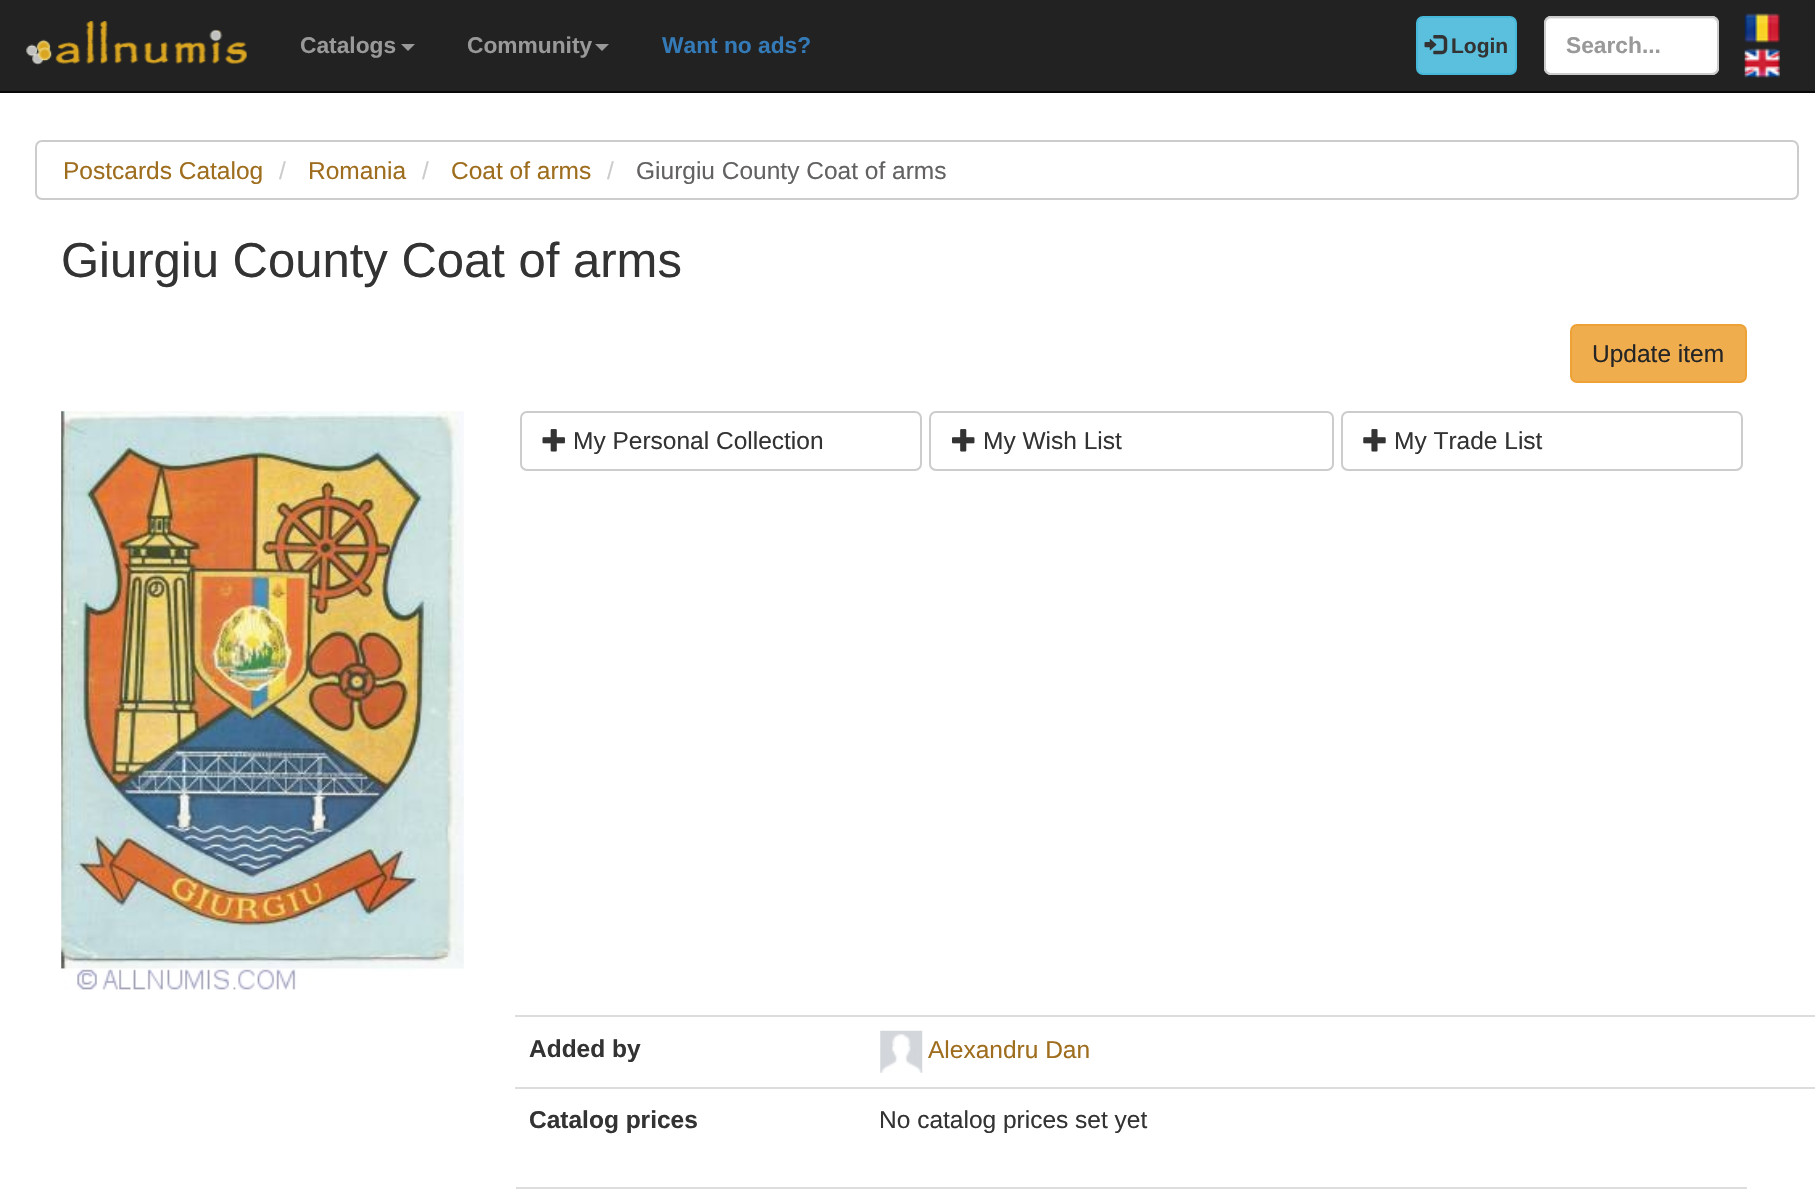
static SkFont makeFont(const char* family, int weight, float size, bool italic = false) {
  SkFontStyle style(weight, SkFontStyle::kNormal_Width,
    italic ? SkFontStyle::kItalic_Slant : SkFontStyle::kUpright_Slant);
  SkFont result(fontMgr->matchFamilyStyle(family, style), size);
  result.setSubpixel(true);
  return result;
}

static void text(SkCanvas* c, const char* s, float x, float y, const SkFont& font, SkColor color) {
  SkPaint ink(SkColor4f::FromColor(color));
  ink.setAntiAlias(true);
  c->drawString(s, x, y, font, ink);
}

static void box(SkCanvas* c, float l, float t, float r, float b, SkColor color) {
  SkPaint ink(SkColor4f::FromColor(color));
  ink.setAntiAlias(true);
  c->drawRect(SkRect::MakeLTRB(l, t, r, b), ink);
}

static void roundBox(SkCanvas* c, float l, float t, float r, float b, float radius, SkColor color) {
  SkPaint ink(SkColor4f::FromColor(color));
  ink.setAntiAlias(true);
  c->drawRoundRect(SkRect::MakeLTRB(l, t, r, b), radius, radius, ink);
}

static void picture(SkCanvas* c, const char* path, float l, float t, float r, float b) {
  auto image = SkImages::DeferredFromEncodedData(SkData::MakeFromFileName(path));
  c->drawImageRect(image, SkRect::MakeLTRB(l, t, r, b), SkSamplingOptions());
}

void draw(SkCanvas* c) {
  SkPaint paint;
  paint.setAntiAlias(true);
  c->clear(0xffffffff);
  box(c, 0, 0, 1815, 91, 0xff222222);
  box(c, 0, 91, 1815, 93, 0xff080808);
  picture(c, "img_01.png", 26, 21, 247, 65);
  SkFont face1 = makeFont("Liberation Sans", 700, 22.75f);
  text(c, "Catalogs", 300, 53, face1, 0xff999999);
  paint.setColor(0xff999999);
  c->drawPath(SkPathBuilder().moveTo(401, 44).lineTo(415, 44).lineTo(408, 51).close().detach(), paint);
  text(c, "Community", 467, 53, face1, 0xff999999);
  c->drawPath(SkPathBuilder().moveTo(595, 44).lineTo(609, 44).lineTo(602, 51).close().detach(), paint);
  text(c, "Want no ads?", 662, 53, face1, 0xff337ab7);
  paint.setColor(0xff5bc0de);
  c->drawRoundRect(SkRect::MakeLTRB(1417, 17, 1516, 74), 6, 6, paint);
  paint.setStyle(SkPaint::kStroke_Style);
  paint.setStrokeWidth(2);
  paint.setColor(0xff46b8da);
  c->drawRoundRect(SkRect::MakeLTRB(1417, 17, 1516, 74), 6, 6, paint);
  picture(c, "img_02.png", 1424, 35, 1448, 55);
  SkFont face2 = makeFont("Liberation Sans", 700, 21);
  text(c, "Login", 1451, 53, face2, 0xff333333);
  roundBox(c, 1544, 16, 1719, 75, 7, 0xffffffff);
  paint.setStyle(SkPaint::kFill_Style);
  paint.setColor(0xffececec);
  c->drawPath(SkPathBuilder().moveTo(1550, 19).lineTo(1712, 19).cubicTo(1714, 19, 1717, 22, 1717, 24).cubicTo(1717, 21, 1716, 19, 1713, 18).lineTo(1550, 18).cubicTo(1547, 18, 1545, 21, 1545, 24).cubicTo(1545, 22, 1548, 19, 1550, 19).close().detach(), paint);
  paint.setStyle(SkPaint::kStroke_Style);
  paint.setColor(0xffcccccc);
  c->drawRoundRect(SkRect::MakeLTRB(1545, 17, 1718, 74), 6, 6, paint);
  text(c, "Search...", 1566, 53, face1, 0xff999999);
  picture(c, "img_03.png", 1744, 13, 1780, 43);
  picture(c, "img_04.png", 1744, 48, 1780, 78);
  c->drawRoundRect(SkRect::MakeLTRB(36, 141, 1798, 199), 6, 6, paint);
  SkFont face3 = makeFont("Liberation Sans", 400, 24.5f);
  text(c, "Postcards Catalog", 63, 179, face3, 0xff9e6d1d);
  text(c, "/", 279, 179, face3, 0xffcccccc);
  text(c, "Romania", 308, 179, face3, 0xff9e6d1d);
  text(c, "/", 422, 179, face3, 0xffcccccc);
  text(c, "Coat of arms", 451, 179, face3, 0xff9e6d1d);
  text(c, "/", 607, 179, face3, 0xffcccccc);
  text(c, "Giurgiu County Coat of arms", 636, 179, face3, 0xff636161);
  SkFont face4 = makeFont("Liberation Sans", 400, 49);
  text(c, "Giurgiu County Coat of arms", 61, 277, face4, 0xff333333);
  paint.setStyle(SkPaint::kFill_Style);
  paint.setColor(0xfff0ad4e);
  c->drawRoundRect(SkRect::MakeLTRB(1571, 325, 1746, 382), 6, 6, paint);
  paint.setStyle(SkPaint::kStroke_Style);
  paint.setColor(0xffeea236);
  c->drawRoundRect(SkRect::MakeLTRB(1571, 325, 1746, 382), 6, 6, paint);
  text(c, "Update item", 1592, 362, face3, 0xff252525);
  picture(c, "img_05.png", 61, 411, 464, 990);
  paint.setColor(0xffcccccc);
  c->drawRoundRect(SkRect::MakeLTRB(521, 412, 921, 470), 6, 6, paint);
  picture(c, "img_06.png", 542, 429, 565, 452);
  text(c, "My Personal Collection", 573, 449, face3, 0xff333333);
  c->drawRoundRect(SkRect::MakeLTRB(930, 412, 1333, 470), 6, 6, paint);
  picture(c, "img_07.png", 952, 429, 975, 452);
  text(c, "My Wish List", 983, 449, face3, 0xff333333);
  c->drawRoundRect(SkRect::MakeLTRB(1342, 412, 1742, 470), 6, 6, paint);
  picture(c, "img_08.png", 1363, 429, 1386, 452);
  text(c, "My Trade List", 1394, 449, face3, 0xff333333);
  SkFont face5 = makeFont("Liberation Sans", 700, 24.5f);
  text(c, "Added by", 529, 1057, face5, 0xff333333);
  box(c, 515, 1015, 1815, 1017, 0xffdddddd);
  picture(c, "img_09.png", 880, 1030, 923, 1073);
  text(c, "Alexandru Dan", 928, 1058, face3, 0xff9e6d1d);
  text(c, "Catalog prices", 529, 1128, face5, 0xff333333);
  box(c, 515, 1087, 1815, 1089, 0xffdddddd);
  text(c, "No catalog prices set yet", 879, 1128, face3, 0xff333333);
  box(c, 516, 1187, 1747, 1189, 0xffdddddd);
}
